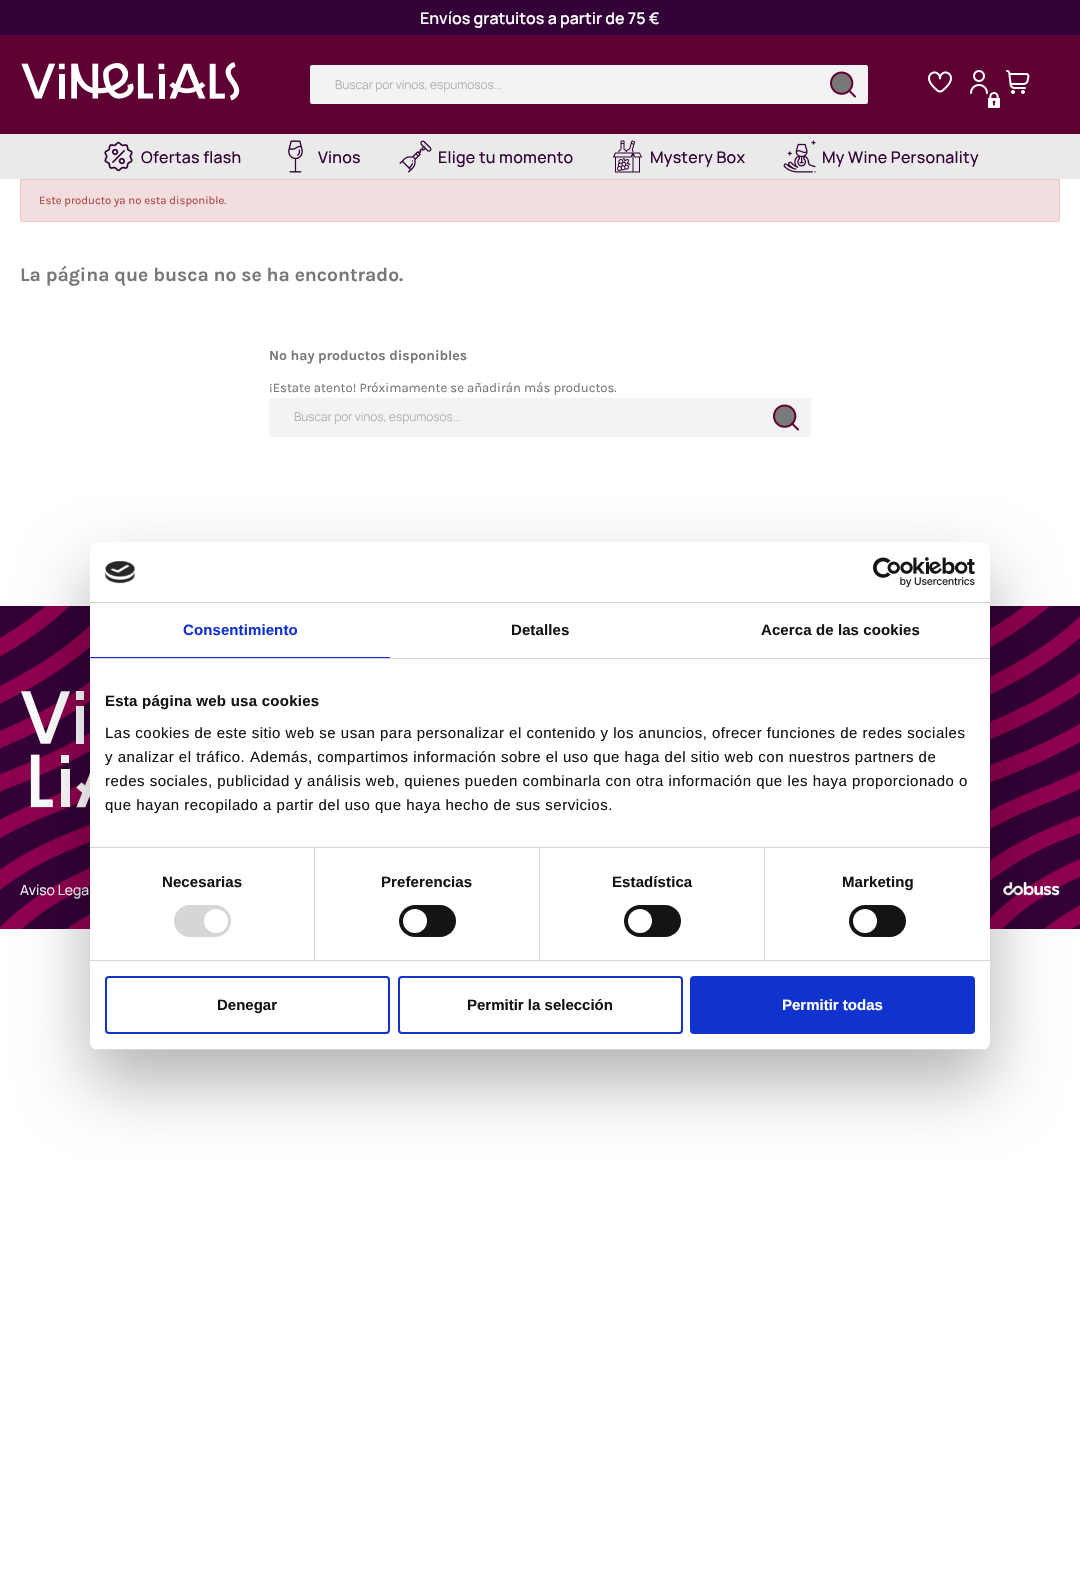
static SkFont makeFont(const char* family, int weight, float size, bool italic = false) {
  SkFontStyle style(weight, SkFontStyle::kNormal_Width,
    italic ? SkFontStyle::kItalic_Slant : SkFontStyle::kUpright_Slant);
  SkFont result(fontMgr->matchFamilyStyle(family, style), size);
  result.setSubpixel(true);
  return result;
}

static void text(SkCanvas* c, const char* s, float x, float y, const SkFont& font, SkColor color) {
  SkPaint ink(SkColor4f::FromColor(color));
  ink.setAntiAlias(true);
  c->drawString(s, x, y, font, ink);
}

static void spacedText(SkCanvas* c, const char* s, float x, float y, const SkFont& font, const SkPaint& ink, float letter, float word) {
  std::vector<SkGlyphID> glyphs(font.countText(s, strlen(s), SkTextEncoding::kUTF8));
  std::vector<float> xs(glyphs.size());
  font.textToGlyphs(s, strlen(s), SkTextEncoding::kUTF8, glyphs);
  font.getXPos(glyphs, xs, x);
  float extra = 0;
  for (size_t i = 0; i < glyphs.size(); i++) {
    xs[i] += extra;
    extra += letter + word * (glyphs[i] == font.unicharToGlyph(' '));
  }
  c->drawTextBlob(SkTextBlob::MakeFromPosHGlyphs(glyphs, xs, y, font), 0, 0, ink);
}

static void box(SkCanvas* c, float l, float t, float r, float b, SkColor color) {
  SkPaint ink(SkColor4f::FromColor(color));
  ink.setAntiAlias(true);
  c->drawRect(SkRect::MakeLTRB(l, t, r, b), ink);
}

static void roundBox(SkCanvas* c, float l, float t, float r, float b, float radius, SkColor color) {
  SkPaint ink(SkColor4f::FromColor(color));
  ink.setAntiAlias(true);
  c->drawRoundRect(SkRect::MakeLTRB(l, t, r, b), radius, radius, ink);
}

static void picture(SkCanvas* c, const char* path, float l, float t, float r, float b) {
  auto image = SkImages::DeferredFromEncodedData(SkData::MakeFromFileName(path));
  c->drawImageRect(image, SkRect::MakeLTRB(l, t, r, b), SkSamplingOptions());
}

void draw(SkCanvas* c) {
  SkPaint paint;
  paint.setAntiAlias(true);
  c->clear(0xffffffff);
  box(c, 0, 35, 1080, 134, 0xff5f0035);
  box(c, 0, 0, 1080, 35, 0xff330037);
  SkFont face1 = makeFont("Manrope", 600, 16);
  text(c, "Envíos gratuitos a partir de 75 €", 420, 24, face1, 0xffffffff);
  picture(c, "img_01.png", 21, 62, 240, 101);
  roundBox(c, 310, 65, 868, 104, 2, 0xfff3f3f3);
  SkFont face2 = makeFont("Manrope", 300, 12);
  text(c, "Buscar por vinos, espumosos...", 335, 89, face2, 0xffaaaaaa);
  picture(c, "img_02.png", 830, 71, 856, 98);
  picture(c, "img_03.png", 928, 71, 952, 93);
  picture(c, "img_04.png", 970, 70, 988, 94);
  picture(c, "img_05.png", 988, 92, 1000, 108);
  picture(c, "img_06.png", 1006, 70, 1030, 94);
  box(c, 0, 134, 1080, 179, 0xffeaeaea);
  picture(c, "img_07.png", 104, 141, 133, 172);
  SkFont face3 = makeFont("Manrope", 500, 16);
  paint.setColor(0xff330037);
  spacedText(c, "Ofertas flash", 141, 163, face3, paint, 0.25f, 0);
  picture(c, "img_08.png", 288, 140, 303, 173);
  spacedText(c, "Vinos", 318, 163, face3, paint, 0.25f, 0);
  picture(c, "img_09.png", 399, 140, 432, 173);
  spacedText(c, "Elige tu momento", 438, 163, face3, paint, 0.25f, 0);
  picture(c, "img_10.png", 613, 140, 642, 173);
  spacedText(c, "Mystery Box", 650, 163, face3, paint, 0.25f, 0);
  picture(c, "img_11.png", 783, 140, 816, 173);
  spacedText(c, "My Wine Personality", 822, 163, face3, paint, 0.25f, 0);
  paint.setColor(0xfff2dede);
  c->drawRect(SkRect::MakeLTRB(20.5f, 179.5f, 1059.5f, 221.5f), paint);
  paint.setStyle(SkPaint::kStroke_Style);
  paint.setStrokeWidth(1);
  paint.setColor(0xffebcccc);
  c->drawRect(SkRect::MakeLTRB(20.5f, 179.5f, 1059.5f, 221.5f), paint);
  SkFont face4 = makeFont("Karla", 400, 11.4f);
  text(c, "Este producto ya no esta disponible.", 39, 204, face4, 0xffa94442);
  SkFont face5 = makeFont("Karla", 700, 19.25f);
  text(c, "La página que busca no se ha encontrado.", 20, 281, face5, 0xff777777);
  SkFont face6 = makeFont("Karla", 700, 14);
  text(c, "No hay productos disponibles", 269, 360, face6, 0xff777777);
  SkFont face7 = makeFont("Karla", 400, 13.1f);
  text(c, "¡Estate atento! Próximamente se añadirán más productos.", 269, 392, face7, 0xff777777);
  roundBox(c, 269, 398, 811, 437, 2, 0xfff3f3f3);
  text(c, "Buscar por vinos, espumosos...", 294, 421, face2, 0xffaaaaaa);
  picture(c, "img_12.png", 773, 404, 799, 431);
  box(c, 0, 606, 1080, 929, 0xff330037);
  picture(c, "img_13.png", 0, 606, 90, 929);
  picture(c, "img_14.png", 990, 606, 1080, 929);
  picture(c, "img_15.png", 21, 691, 90, 808);
  SkFont face8 = makeFont("Manrope", 400, 14);
  text(c, "Aviso Lega", 20, 895, face8, 0xffffffff);
  picture(c, "img_16.png", 1003, 882, 1060, 896);
  paint.setStyle(SkPaint::kFill_Style);
  paint.setColor(0x4d000000);
  paint.setMaskFilter(SkMaskFilter::MakeBlur(kNormal_SkBlurStyle, 34));
  c->drawRoundRect(SkRect::MakeLTRB(90, 574, 990, 1082), 8, 8, paint);
  paint.setMaskFilter(nullptr);
  roundBox(c, 90, 542, 990, 1050, 8, 0xffffffff);
  box(c, 90, 602, 990, 603, 0xffd6d6d6);
  picture(c, "img_17.png", 105, 561, 135, 584);
  picture(c, "img_18.png", 873, 557, 975, 587);
  box(c, 90, 658, 990, 659, 0xffd6d6d6);
  box(c, 90, 657, 390, 658, 0xff1032cf);
  SkFont face9 = makeFont("Liberation Sans", 700, 15);
  paint.setColor(0xff1032cf);
  spacedText(c, "Consentimiento", 183, 635, face9, paint, 0.1f, 0);
  paint.setColor(0xff141414);
  spacedText(c, "Detalles", 511, 635, face9, paint, 0.1f, 0);
  spacedText(c, "Acerca de las cookies", 761, 635, face9, paint, 0.1f, 0);
  box(c, 90, 847, 990, 848, 0xffd6d6d6);
  spacedText(c, "Esta página web usa cookies", 105, 706, face9, paint, 0.25f, 0);
  SkFont face10 = makeFont("Liberation Sans", 400, 15);
  spacedText(c, "Las cookies de este sitio web se usan para personalizar el contenido y los anuncios, ofrecer funciones de redes sociales", 105, 738, face10, paint, 0.5f, 0);
  spacedText(c, "y analizar el tráfico. Además, compartimos información sobre el uso que haga del sitio web con nuestros partners de", 105, 762, face10, paint, 0.5f, 0);
  spacedText(c, "redes sociales, publicidad y análisis web, quienes pueden combinarla con otra información que les haya proporcionado o", 105, 786, face10, paint, 0.5f, 0);
  spacedText(c, "que hayan recopilado a partir del uso que haya hecho de sus servicios.", 105, 810, face10, paint, 0.5f, 0);
  box(c, 90, 960, 990, 961, 0xffd6d6d6);
  box(c, 314, 848, 315, 960, 0xffd6d6d6);
  spacedText(c, "Necesarias", 162, 887, face9, paint, 0.1f, 0);
  roundBox(c, 174, 905, 231, 937, 16, 0xffd6d6d6);
  paint.setColor(0xffffffff);
  c->drawCircle(216, 921, 12, paint);
  box(c, 539, 848, 540, 960, 0xffd6d6d6);
  paint.setColor(0xff141414);
  spacedText(c, "Preferencias", 381, 887, face9, paint, 0.1f, 0);
  roundBox(c, 399, 905, 456, 937, 16, 0xff141414);
  paint.setColor(0xffffffff);
  c->drawCircle(415, 921, 12, paint);
  box(c, 764, 848, 765, 960, 0xffd6d6d6);
  paint.setColor(0xff141414);
  spacedText(c, "Estadística", 612, 887, face9, paint, 0.1f, 0);
  roundBox(c, 624, 905, 681, 937, 16, 0xff141414);
  paint.setColor(0xffffffff);
  c->drawCircle(640, 921, 12, paint);
  paint.setColor(0xff141414);
  spacedText(c, "Marketing", 842, 887, face9, paint, 0.1f, 0);
  roundBox(c, 849, 905, 906, 937, 16, 0xff141414);
  paint.setColor(0xffffffff);
  c->drawCircle(865, 921, 12, paint);
  c->save();
  c->clipPath(SkPathBuilder().moveTo(98, 542).lineTo(982, 542).cubicTo(986.5f, 542, 990, 545.5f, 990, 550).lineTo(990, 1042).cubicTo(990, 1046.5f, 986.5f, 1050, 982, 1050).lineTo(98, 1050).cubicTo(93.5f, 1050, 90, 1046.5f, 90, 1042).lineTo(90, 550).cubicTo(90, 545.5f, 93.5f, 542, 98, 542).close().detach(), true);
  box(c, 90, 1049, 990, 1050, 0xffd6d6d6);
  c->restore();
  paint.setStyle(SkPaint::kStroke_Style);
  paint.setStrokeWidth(2);
  paint.setColor(0xff1032cf);
  c->drawRoundRect(SkRect::MakeLTRB(106, 977, 389, 1033), 3, 3, paint);
  text(c, "Denegar", 217, 1010, face9, 0xff141414);
  c->drawRoundRect(SkRect::MakeLTRB(399, 977, 682, 1033), 3, 3, paint);
  text(c, "Permitir la selección", 467, 1010, face9, 0xff141414);
  paint.setStyle(SkPaint::kFill_Style);
  c->drawRoundRect(SkRect::MakeLTRB(691, 977, 974, 1033), 3, 3, paint);
  paint.setStyle(SkPaint::kStroke_Style);
  c->drawRoundRect(SkRect::MakeLTRB(691, 977, 974, 1033), 3, 3, paint);
  text(c, "Permitir todas", 782, 1010, face9, 0xffffffff);
}
